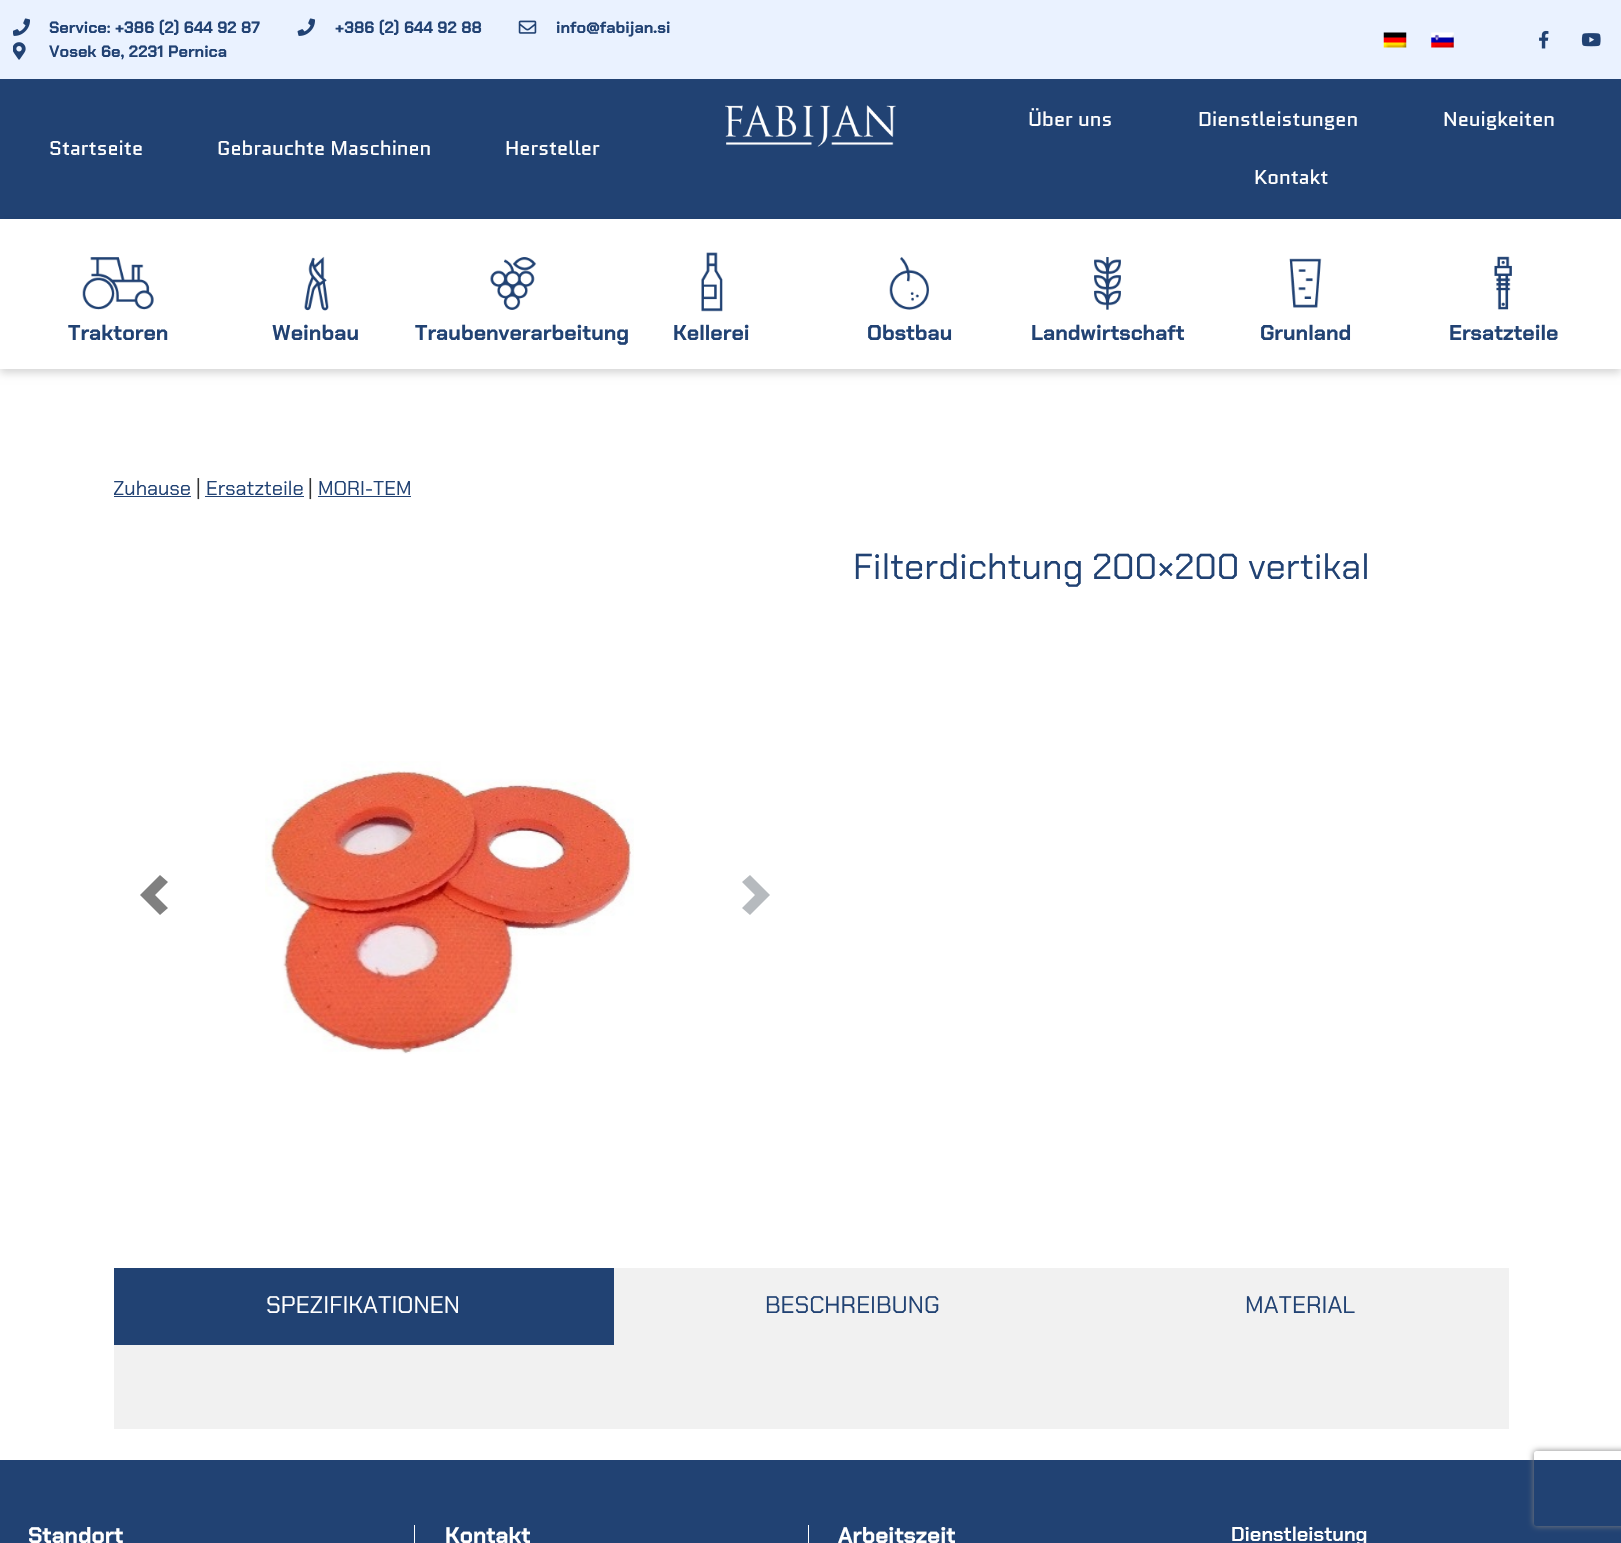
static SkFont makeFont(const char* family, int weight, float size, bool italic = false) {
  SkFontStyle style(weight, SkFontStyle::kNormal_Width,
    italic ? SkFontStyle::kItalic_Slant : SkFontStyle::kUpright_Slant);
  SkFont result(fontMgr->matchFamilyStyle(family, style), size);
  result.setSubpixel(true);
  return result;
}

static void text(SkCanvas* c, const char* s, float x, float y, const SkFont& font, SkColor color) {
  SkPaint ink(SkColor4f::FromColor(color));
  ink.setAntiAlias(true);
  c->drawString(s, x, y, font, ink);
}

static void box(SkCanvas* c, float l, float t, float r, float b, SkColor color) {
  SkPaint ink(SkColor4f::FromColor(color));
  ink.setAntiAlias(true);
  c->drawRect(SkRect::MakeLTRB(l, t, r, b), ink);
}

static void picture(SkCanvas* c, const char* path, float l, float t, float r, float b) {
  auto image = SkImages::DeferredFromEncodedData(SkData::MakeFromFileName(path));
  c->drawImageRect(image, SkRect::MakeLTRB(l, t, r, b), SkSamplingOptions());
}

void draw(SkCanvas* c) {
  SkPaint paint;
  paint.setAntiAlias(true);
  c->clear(0xffffffff);
  box(c, 0, 0, 1621, 79, 0xffeaf2ff);
  picture(c, "img_01.png", 13, 18, 30, 36);
  SkFont face1 = makeFont("Chakra Petch", 700, 16.25f);
  text(c, "Service: +386 (2) 644 92 87", 49, 33, face1, 0xff214273);
  picture(c, "img_02.png", 297, 18, 315, 36);
  text(c, "+386 (2) 644 92 88", 335, 33, face1, 0xff214273);
  picture(c, "img_03.png", 518, 20, 537, 34);
  text(c, "info@fabijan.si", 556, 33, face1, 0xff214273);
  picture(c, "img_04.png", 13, 42, 26, 60);
  text(c, "Vosek 6e, 2231 Pernica", 49, 57, face1, 0xff214273);
  picture(c, "img_05.png", 1383, 32, 1407, 48);
  picture(c, "img_06.png", 1431, 32, 1454, 48);
  picture(c, "img_07.png", 1539, 30, 1549, 49);
  picture(c, "img_08.png", 1581, 33, 1601, 47);
  box(c, 0, 79, 1621, 219, 0xff214273);
  SkFont face2 = makeFont("Quantico", 400, 20);
  text(c, "Startseite", 49, 155, face2, 0xffffffff);
  text(c, "Gebrauchte Maschinen", 217, 155, face2, 0xffffffff);
  text(c, "Hersteller", 505, 155, face2, 0xffffffff);
  picture(c, "img_09.png", 725, 105, 896, 147);
  text(c, "Über uns", 1028, 126, face2, 0xffffffff);
  text(c, "Dienstleistungen", 1198, 126, face2, 0xffffffff);
  text(c, "Neuigkeiten", 1443, 126, face2, 0xffffffff);
  text(c, "Kontakt", 1254, 184, face2, 0xffffffff);
  paint.setColor(0x29000000);
  paint.setMaskFilter(SkMaskFilter::MakeBlur(kNormal_SkBlurStyle, 4));
  c->drawRect(SkRect::MakeLTRB(0, 223, 1621, 373), paint);
  paint.setMaskFilter(nullptr);
  box(c, 0, 219, 1621, 369, 0xffffffff);
  picture(c, "img_10.png", 82, 257, 154, 310);
  SkFont face3 = makeFont("Chakra Petch", 700, 21.25f);
  text(c, "Traktoren", 68, 340, face3, 0xff214273);
  picture(c, "img_11.png", 304, 256, 329, 311);
  text(c, "Weinbau", 272, 340, face3, 0xff214273);
  picture(c, "img_12.png", 490, 257, 537, 310);
  text(c, "Traubenverarbeitung", 415, 340, face3, 0xff214273);
  picture(c, "img_13.png", 701, 252, 723, 312);
  text(c, "Kellerei", 673, 340, face3, 0xff214273);
  picture(c, "img_14.png", 889, 257, 929, 310);
  text(c, "Obstbau", 867, 340, face3, 0xff214273);
  picture(c, "img_15.png", 1094, 257, 1121, 310);
  text(c, "Landwirtschaft", 1031, 340, face3, 0xff214273);
  picture(c, "img_16.png", 1289, 258, 1322, 308);
  text(c, "Grunland", 1260, 340, face3, 0xff214273);
  picture(c, "img_17.png", 1494, 256, 1512, 310);
  text(c, "Ersatzteile", 1449, 340, face3, 0xff214273);
  SkFont face4 = makeFont("Chakra Petch", 400, 20);
  text(c, "Zuhause", 113, 495, face4, 0xff214273);
  box(c, 114, 496, 191, 497, 0xff214273);
  text(c, "|", 196, 495, face4, 0xff333333);
  text(c, "Ersatzteile", 206, 495, face4, 0xff214273);
  box(c, 205, 496, 304, 497, 0xff214273);
  text(c, "|", 308, 495, face4, 0xff333333);
  text(c, "MORI-TEM", 318, 495, face4, 0xff214273);
  box(c, 318, 496, 411, 497, 0xff214273);
  SkFont face5 = makeFont("Chakra Petch", 400, 36);
  text(c, "Filterdichtung 200×200 vertikal", 853, 579, face5, 0xff214273);
  picture(c, "img_18.png", 265, 761, 634, 1054);
  paint.setColor(0xff808080);
  c->drawPath(SkPathBuilder().moveTo(160, 875).lineTo(140, 895).lineTo(160, 915).lineTo(168, 908).lineTo(155, 895).lineTo(168, 882).close().detach(), paint);
  paint.setColor(0xffb6babe);
  c->drawPath(SkPathBuilder().moveTo(750, 875).lineTo(742, 882).lineTo(755, 895).lineTo(742, 908).lineTo(750, 915).lineTo(770, 895).close().detach(), paint);
  box(c, 114, 1268, 1509, 1429, 0xfff1f1f1);
  box(c, 114, 1268, 614, 1345, 0xff214273);
  SkFont face6 = makeFont("Chakra Petch", 400, 24);
  text(c, "SPEZIFIKATIONEN", 266, 1313, face6, 0xffffffff);
  text(c, "BESCHREIBUNG", 765, 1313, face6, 0xff214273);
  text(c, "MATERIAL", 1245, 1313, face6, 0xff214273);
  box(c, 0, 1460, 1621, 1543, 0xff214273);
  box(c, 414, 1525, 415, 1543, 0xffffffff);
  SkFont face7 = makeFont("Chakra Petch", 700, 22.5f);
  text(c, "Standort", 28, 1543, face7, 0xffffffff);
  box(c, 808, 1525, 809, 1543, 0xffffffff);
  text(c, "Kontakt", 445, 1543, face7, 0xffffffff);
  text(c, "Arbeitszeit", 838, 1543, face7, 0xffffffff);
  SkFont face8 = makeFont("Chakra Petch", 600, 20);
  text(c, "Dienstleistung", 1231, 1541, face8, 0xffffffff);
  c->save();
  c->clipPath(SkPathBuilder(SkPathFillType::kEvenOdd).moveTo(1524, 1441).lineTo(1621, 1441).lineTo(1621, 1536).lineTo(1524, 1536).close().moveTo(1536.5f, 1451).lineTo(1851.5f, 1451).cubicTo(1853, 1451, 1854, 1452, 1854, 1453.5f).lineTo(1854, 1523.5f).cubicTo(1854, 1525, 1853, 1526, 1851.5f, 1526).lineTo(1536.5f, 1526).cubicTo(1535, 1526, 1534, 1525, 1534, 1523.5f).lineTo(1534, 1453.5f).cubicTo(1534, 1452, 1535, 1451, 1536.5f, 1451).close().detach(), true);
  paint.setColor(0xff808080);
  paint.setMaskFilter(SkMaskFilter::MakeBlur(kNormal_SkBlurStyle, 3));
  c->drawRoundRect(SkRect::MakeLTRB(1534, 1451, 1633, 1526), 2.5f, 2.5f, paint);
  paint.setMaskFilter(nullptr);
  c->restore();
}
